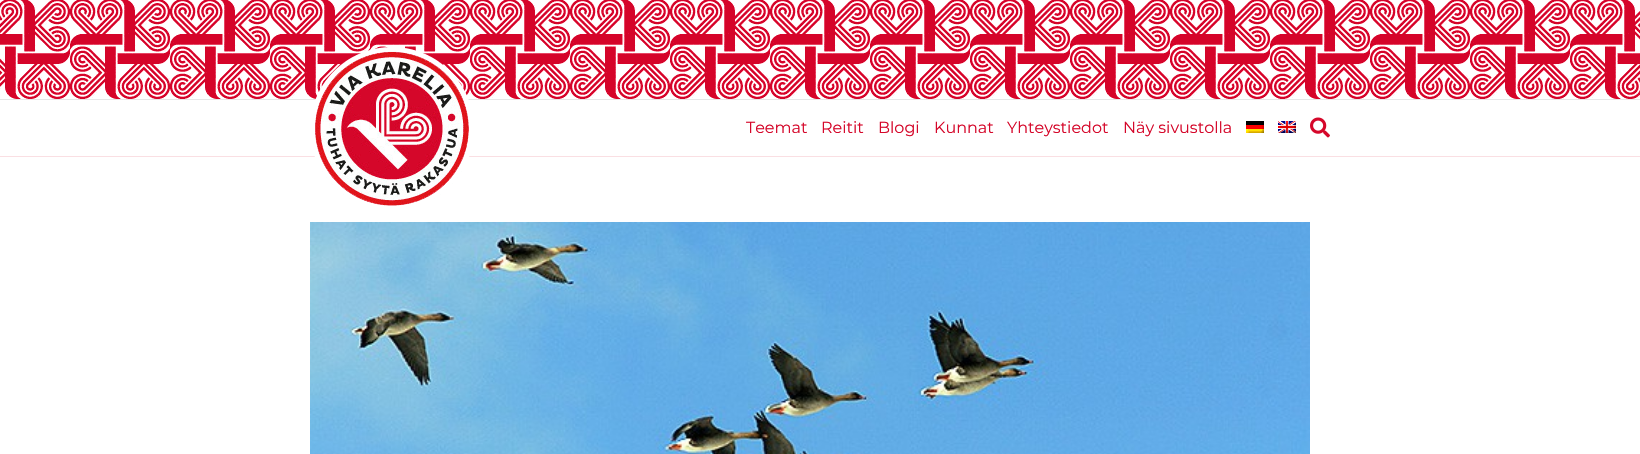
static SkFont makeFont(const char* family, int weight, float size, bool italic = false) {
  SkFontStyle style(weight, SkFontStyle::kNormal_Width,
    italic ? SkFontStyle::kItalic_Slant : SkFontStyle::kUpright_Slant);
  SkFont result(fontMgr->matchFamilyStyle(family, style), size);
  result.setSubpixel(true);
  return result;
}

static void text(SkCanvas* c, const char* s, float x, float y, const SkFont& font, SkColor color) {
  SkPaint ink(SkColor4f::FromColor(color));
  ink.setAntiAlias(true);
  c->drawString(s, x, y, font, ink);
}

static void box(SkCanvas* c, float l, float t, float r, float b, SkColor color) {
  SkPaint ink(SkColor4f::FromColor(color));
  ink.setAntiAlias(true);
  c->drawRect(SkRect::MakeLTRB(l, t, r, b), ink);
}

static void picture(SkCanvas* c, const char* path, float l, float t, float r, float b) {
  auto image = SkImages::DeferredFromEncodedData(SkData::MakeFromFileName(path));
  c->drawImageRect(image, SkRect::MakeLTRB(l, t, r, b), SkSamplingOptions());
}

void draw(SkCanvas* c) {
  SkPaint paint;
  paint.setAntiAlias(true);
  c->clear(0xffffffff);
  picture(c, "img_01.png", 0, 0, 1640, 99);
  box(c, 0, 99, 1640, 100, 0xffe6e6e6);
  box(c, 0, 156, 1640, 157, 0xfffadfe3);
  picture(c, "img_02.png", 314, 47, 470, 206);
  SkFont face1 = makeFont("Montserrat", 400, 16);
  text(c, "Teemat", 746, 133, face1, 0xffd5072a);
  text(c, "Reitit", 821, 133, face1, 0xffd5072a);
  text(c, "Blogi", 878, 133, face1, 0xffd5072a);
  text(c, "Kunnat", 934, 133, face1, 0xffd5072a);
  text(c, "Yhteystiedot", 1007, 133, face1, 0xffd5072a);
  text(c, "Näy sivustolla", 1123, 133, face1, 0xffd5072a);
  picture(c, "img_03.png", 1246, 121, 1264, 133);
  picture(c, "img_04.png", 1278, 121, 1296, 133);
  picture(c, "img_05.png", 1310, 117, 1330, 138);
  picture(c, "img_06.png", 310, 222, 1310, 454);
}
